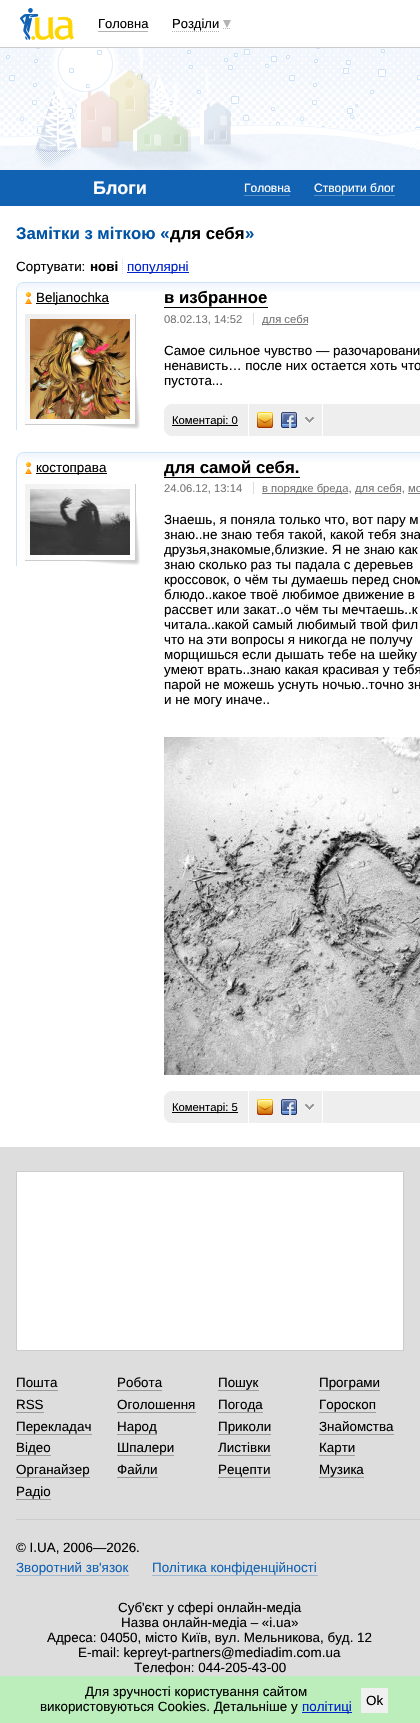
static SkFont makeFont(const char* family, int weight, float size, bool italic = false) {
  SkFontStyle style(weight, SkFontStyle::kNormal_Width,
    italic ? SkFontStyle::kItalic_Slant : SkFontStyle::kUpright_Slant);
  SkFont result(fontMgr->matchFamilyStyle(family, style), size);
  result.setSubpixel(true);
  return result;
}

static void text(SkCanvas* c, const char* s, float x, float y, const SkFont& font, SkColor color) {
  SkPaint ink(SkColor4f::FromColor(color));
  ink.setAntiAlias(true);
  c->drawString(s, x, y, font, ink);
}

static void box(SkCanvas* c, float l, float t, float r, float b, SkColor color) {
  SkPaint ink(SkColor4f::FromColor(color));
  ink.setAntiAlias(true);
  c->drawRect(SkRect::MakeLTRB(l, t, r, b), ink);
}

static void picture(SkCanvas* c, const char* path, float l, float t, float r, float b) {
  auto image = SkImages::DeferredFromEncodedData(SkData::MakeFromFileName(path));
  c->drawImageRect(image, SkRect::MakeLTRB(l, t, r, b), SkSamplingOptions());
}

void draw(SkCanvas* c) {
  SkPaint paint;
  paint.setAntiAlias(true);
  c->clear(0xffffffff);
  box(c, 0, 47, 420, 48, 0xffcccccc);
  picture(c, "img_01.png", 20, 8, 74, 40);
  SkFont face1 = makeFont("Liberation Sans", 400, 13);
  text(c, "Головна", 98, 28, face1, 0xff000000);
  box(c, 98, 31, 148, 32, 0xffb3b3b3);
  paint.setStyle(SkPaint::kStroke_Style);
  paint.setStrokeWidth(1);
  paint.setColor(0xffb3b3b3);
  paint.setPathEffect(SkDashPathEffect::Make({{1, 1}}, 0));
  c->drawPath(SkPathBuilder().moveTo(172, 31.5f).lineTo(219, 31.5f).moveTo(223, 28.5f).lineTo(231, 28.5f).detach(), paint);
  paint.setPathEffect(nullptr);
  text(c, "Розділи", 172, 28, face1, 0xff000000);
  paint.setStyle(SkPaint::kFill_Style);
  c->drawPath(SkPathBuilder().moveTo(223, 20).lineTo(231, 20).lineTo(227, 28).close().detach(), paint);
  picture(c, "img_02.png", 0, 48, 420, 170);
  box(c, 0, 170, 420, 206, 0xff1162b3);
  SkFont face2 = makeFont("Liberation Sans", 700, 18);
  text(c, "Блоги", 93, 194, face2, 0xffffffff);
  SkFont face3 = makeFont("Liberation Sans", 400, 12);
  text(c, "Головна", 244, 192, face3, 0xffffffff);
  box(c, 244, 195, 290, 196, 0xff5891ca);
  text(c, "Створити блог", 314, 192, face3, 0xffffffff);
  box(c, 314, 195, 395, 196, 0xff5891ca);
  SkFont face4 = makeFont("Liberation Sans", 700, 16.75f);
  text(c, "Замітки з міткою «", 16, 239, face4, 0xff0053a5);
  text(c, "для себя", 170, 239, face4, 0xff000000);
  text(c, "»", 245, 239, face4, 0xff0053a5);
  SkFont face5 = makeFont("Liberation Sans", 400, 13.4f);
  text(c, "Сортувати:", 16, 271, face5, 0xff000000);
  paint.setStyle(SkPaint::kStroke_Style);
  paint.setColor(0xffdddddd);
  paint.setPathEffect(SkDashPathEffect::Make({{1, 1}}, 0));
  c->drawPath(SkPathBuilder().moveTo(122.5f, 259).lineTo(122.5f, 274).detach(), paint);
  paint.setPathEffect(nullptr);
  SkFont face6 = makeFont("Liberation Sans", 700, 13.4f);
  text(c, "нові", 90, 271, face6, 0xff000000);
  box(c, 127, 272, 189, 273, 0xff0022cc);
  text(c, "популярні", 127, 271, face5, 0xff0022cc);
  picture(c, "img_03.png", 17, 283, 420, 292);
  box(c, 16, 282, 420, 283, 0xffcee3f7);
  picture(c, "img_04.png", 16, 282, 23, 290);
  box(c, 16, 290, 17, 430, 0xffcee3f7);
  picture(c, "img_05.png", 25, 292, 32, 304);
  box(c, 36, 303, 109, 304, 0xff000000);
  text(c, "Beljanochka", 36, 302, face5, 0xff000000);
  picture(c, "img_06.png", 25, 314, 140, 429);
  picture(c, "img_07.png", 30, 319, 130, 419);
  text(c, "в избранное", 164, 303, face4, 0xff000000);
  box(c, 164, 307, 268, 308, 0xff000000);
  SkFont face7 = makeFont("Liberation Sans", 400, 11.25f);
  text(c, "08.02.13, 14:52", 164, 323, face7, 0xff777777);
  box(c, 262, 324, 308, 325, 0xff777777);
  text(c, "для себя", 262, 323, face7, 0xff777777);
  box(c, 253, 313, 254, 325, 0xffdddddd);
  text(c, "Самое сильное чувство — разочаровани", 164, 355, face5, 0xff000000);
  text(c, "ненависть… после них остается хоть что", 164, 370, face5, 0xff000000);
  text(c, "пустота...", 164, 385, face5, 0xff000000);
  box(c, 164, 404, 420, 436, 0xffeeeeee);
  picture(c, "img_08.png", 164, 404, 170, 410);
  box(c, 172, 425, 238, 426, 0xff000000);
  text(c, "Коментарі: 0", 172, 424, face7, 0xff000000);
  box(c, 322, 404, 323, 437, 0xffffffff);
  box(c, 248, 404, 249, 437, 0xffffffff);
  picture(c, "img_09.png", 257, 412, 273, 428);
  picture(c, "img_10.png", 281, 412, 297, 428);
  picture(c, "img_11.png", 305, 417, 314, 424);
  picture(c, "img_12.png", 164, 430, 170, 436);
  picture(c, "img_03.png", 17, 453, 420, 462);
  box(c, 16, 452, 420, 453, 0xffcee3f7);
  picture(c, "img_04.png", 16, 452, 23, 460);
  box(c, 16, 460, 17, 566, 0xffcee3f7);
  picture(c, "img_05.png", 25, 462, 32, 474);
  box(c, 36, 473, 107, 474, 0xff000000);
  text(c, "костоправа", 36, 472, face5, 0xff000000);
  picture(c, "img_13.png", 25, 484, 140, 565);
  picture(c, "img_14.png", 30, 489, 130, 555);
  text(c, "для самой себя.", 164, 473, face4, 0xff000000);
  box(c, 164, 477, 300, 478, 0xff000000);
  text(c, "24.06.12, 13:14", 164, 492, face7, 0xff777777);
  box(c, 262, 493, 348, 494, 0xff777777);
  text(c, "в порядке бреда,", 262, 492, face7, 0xff777777);
  box(c, 253, 482, 254, 494, 0xffdddddd);
  box(c, 355, 493, 401, 494, 0xff777777);
  text(c, "для себя, мо", 355, 492, face7, 0xff777777);
  box(c, 408, 493, 420, 494, 0xff777777);
  text(c, "Знаешь, я поняла только что, вот пару м", 164, 524, face5, 0xff000000);
  text(c, "знаю..не знаю тебя такой, какой тебя зна", 164, 539, face5, 0xff000000);
  text(c, "друзья,знакомые,близкие. Я не знаю как", 164, 554, face5, 0xff000000);
  text(c, "знаю сколько раз ты падала с деревьев", 164, 569, face5, 0xff000000);
  text(c, "кроссовок, о чём ты думаешь перед сном", 164, 584, face5, 0xff000000);
  text(c, "блюдо..какое твоё любимое движение в", 164, 599, face5, 0xff000000);
  text(c, "рассвет или закат..о чём ты мечтаешь..к", 164, 614, face5, 0xff000000);
  text(c, "читала..какой самый любимый твой фил", 164, 629, face5, 0xff000000);
  text(c, "что на эти вопросы я никогда не получу", 164, 644, face5, 0xff000000);
  text(c, "морщишься если дышать тебе на шейку", 164, 659, face5, 0xff000000);
  text(c, "умеют врать..знаю какая красивая у тебя", 164, 674, face5, 0xff000000);
  text(c, "парой не можешь уснуть ночью..точно зн", 164, 689, face5, 0xff000000);
  text(c, "и не могу иначе..", 164, 704, face5, 0xff000000);
  picture(c, "img_15.png", 164, 737, 420, 1075);
  box(c, 164, 1091, 420, 1123, 0xffeeeeee);
  picture(c, "img_08.png", 164, 1091, 170, 1097);
  box(c, 172, 1112, 238, 1113, 0xff000000);
  text(c, "Коментарі: 5", 172, 1111, face7, 0xff000000);
  box(c, 322, 1091, 323, 1124, 0xffffffff);
  box(c, 248, 1091, 249, 1124, 0xffffffff);
  picture(c, "img_09.png", 257, 1099, 273, 1115);
  picture(c, "img_10.png", 281, 1099, 297, 1115);
  picture(c, "img_11.png", 305, 1104, 314, 1111);
  picture(c, "img_12.png", 164, 1117, 170, 1123);
  box(c, 0, 1147, 420, 1676, 0xffdddddd);
  paint.setStyle(SkPaint::kFill_Style);
  paint.setColor(0xffffffff);
  c->drawRect(SkRect::MakeLTRB(16.5f, 1171.5f, 403.5f, 1350.5f), paint);
  paint.setStyle(SkPaint::kStroke_Style);
  paint.setColor(0xffcccccc);
  c->drawRect(SkRect::MakeLTRB(16.5f, 1171.5f, 403.5f, 1350.5f), paint);
  text(c, "Пошта", 16, 1387, face5, 0xff000000);
  box(c, 16, 1390, 58, 1391, 0xff9b9b9b);
  text(c, "Робота", 117, 1387, face5, 0xff000000);
  box(c, 117, 1390, 162, 1391, 0xff9b9b9b);
  text(c, "Пошук", 218, 1387, face5, 0xff000000);
  box(c, 218, 1390, 259, 1391, 0xff9b9b9b);
  text(c, "Програми", 319, 1387, face5, 0xff000000);
  box(c, 319, 1390, 380, 1391, 0xff9b9b9b);
  text(c, "RSS", 16, 1409, face5, 0xff000000);
  box(c, 16, 1412, 44, 1413, 0xff9b9b9b);
  text(c, "Оголошення", 117, 1409, face5, 0xff000000);
  box(c, 117, 1412, 196, 1413, 0xff9b9b9b);
  text(c, "Погода", 218, 1409, face5, 0xff000000);
  box(c, 218, 1412, 263, 1413, 0xff9b9b9b);
  text(c, "Гороскоп", 319, 1409, face5, 0xff000000);
  box(c, 319, 1412, 376, 1413, 0xff9b9b9b);
  text(c, "Перекладач", 16, 1431, face5, 0xff000000);
  box(c, 16, 1434, 92, 1435, 0xff9b9b9b);
  text(c, "Народ", 117, 1431, face5, 0xff000000);
  box(c, 117, 1434, 157, 1435, 0xff9b9b9b);
  text(c, "Приколи", 218, 1431, face5, 0xff000000);
  box(c, 218, 1434, 271, 1435, 0xff9b9b9b);
  text(c, "Знайомства", 319, 1431, face5, 0xff000000);
  box(c, 319, 1434, 394, 1435, 0xff9b9b9b);
  text(c, "Відео", 16, 1452, face5, 0xff000000);
  box(c, 16, 1455, 51, 1456, 0xff9b9b9b);
  text(c, "Шпалери", 117, 1452, face5, 0xff000000);
  box(c, 117, 1455, 174, 1456, 0xff9b9b9b);
  text(c, "Листівки", 218, 1452, face5, 0xff000000);
  box(c, 218, 1455, 271, 1456, 0xff9b9b9b);
  text(c, "Карти", 319, 1452, face5, 0xff000000);
  box(c, 319, 1455, 355, 1456, 0xff9b9b9b);
  text(c, "Органайзер", 16, 1474, face5, 0xff000000);
  box(c, 16, 1477, 90, 1478, 0xff9b9b9b);
  text(c, "Файли", 117, 1474, face5, 0xff000000);
  box(c, 117, 1477, 158, 1478, 0xff9b9b9b);
  text(c, "Рецепти", 218, 1474, face5, 0xff000000);
  box(c, 218, 1477, 271, 1478, 0xff9b9b9b);
  text(c, "Музика", 319, 1474, face5, 0xff000000);
  box(c, 319, 1477, 364, 1478, 0xff9b9b9b);
  text(c, "Радіо", 16, 1496, face5, 0xff000000);
  box(c, 16, 1499, 51, 1500, 0xff9b9b9b);
  box(c, 16, 1519, 420, 1520, 0xffcccccc);
  text(c, "© I.UA, 2006—2026.", 16, 1552, face5, 0xff000000);
  text(c, "Зворотний зв'язок", 16, 1572, face5, 0xff1162b3);
  box(c, 16, 1575, 129, 1576, 0xffa0b8d0);
  text(c, "Політика конфіденційності", 152, 1572, face5, 0xff1162b3);
  box(c, 152, 1575, 318, 1576, 0xffa0b8d0);
  text(c, "Суб'єкт у сфері онлайн-медіа", 118, 1612, face5, 0xff000000);
  text(c, "Назва онлайн-медіа – «i.ua»", 121, 1627, face5, 0xff000000);
  text(c, "Адреса: 04050, місто Київ, вул. Мельникова, буд. 12", 47, 1642, face5, 0xff000000);
  text(c, "E-mail: kepreyt-partners@mediadim.com.ua", 78, 1657, face5, 0xff000000);
  text(c, "Телефон: 044-205-43-00", 134, 1672, face5, 0xff000000);
  box(c, 0, 1676, 420, 1723, 0xffbbeebb);
  text(c, "Для зручності користування сайтом", 85, 1696, face5, 0xff000000);
  text(c, "використовуються Cookies. Детальніше у", 40, 1711, face5, 0xff000000);
  box(c, 302, 1712, 352, 1713, 0xff0022cc);
  text(c, "політиці", 302, 1711, face5, 0xff0022cc);
  box(c, 361, 1688, 388, 1713, 0xfff0f0f0);
  text(c, "Ok", 366, 1705, face5, 0xff000000);
}
